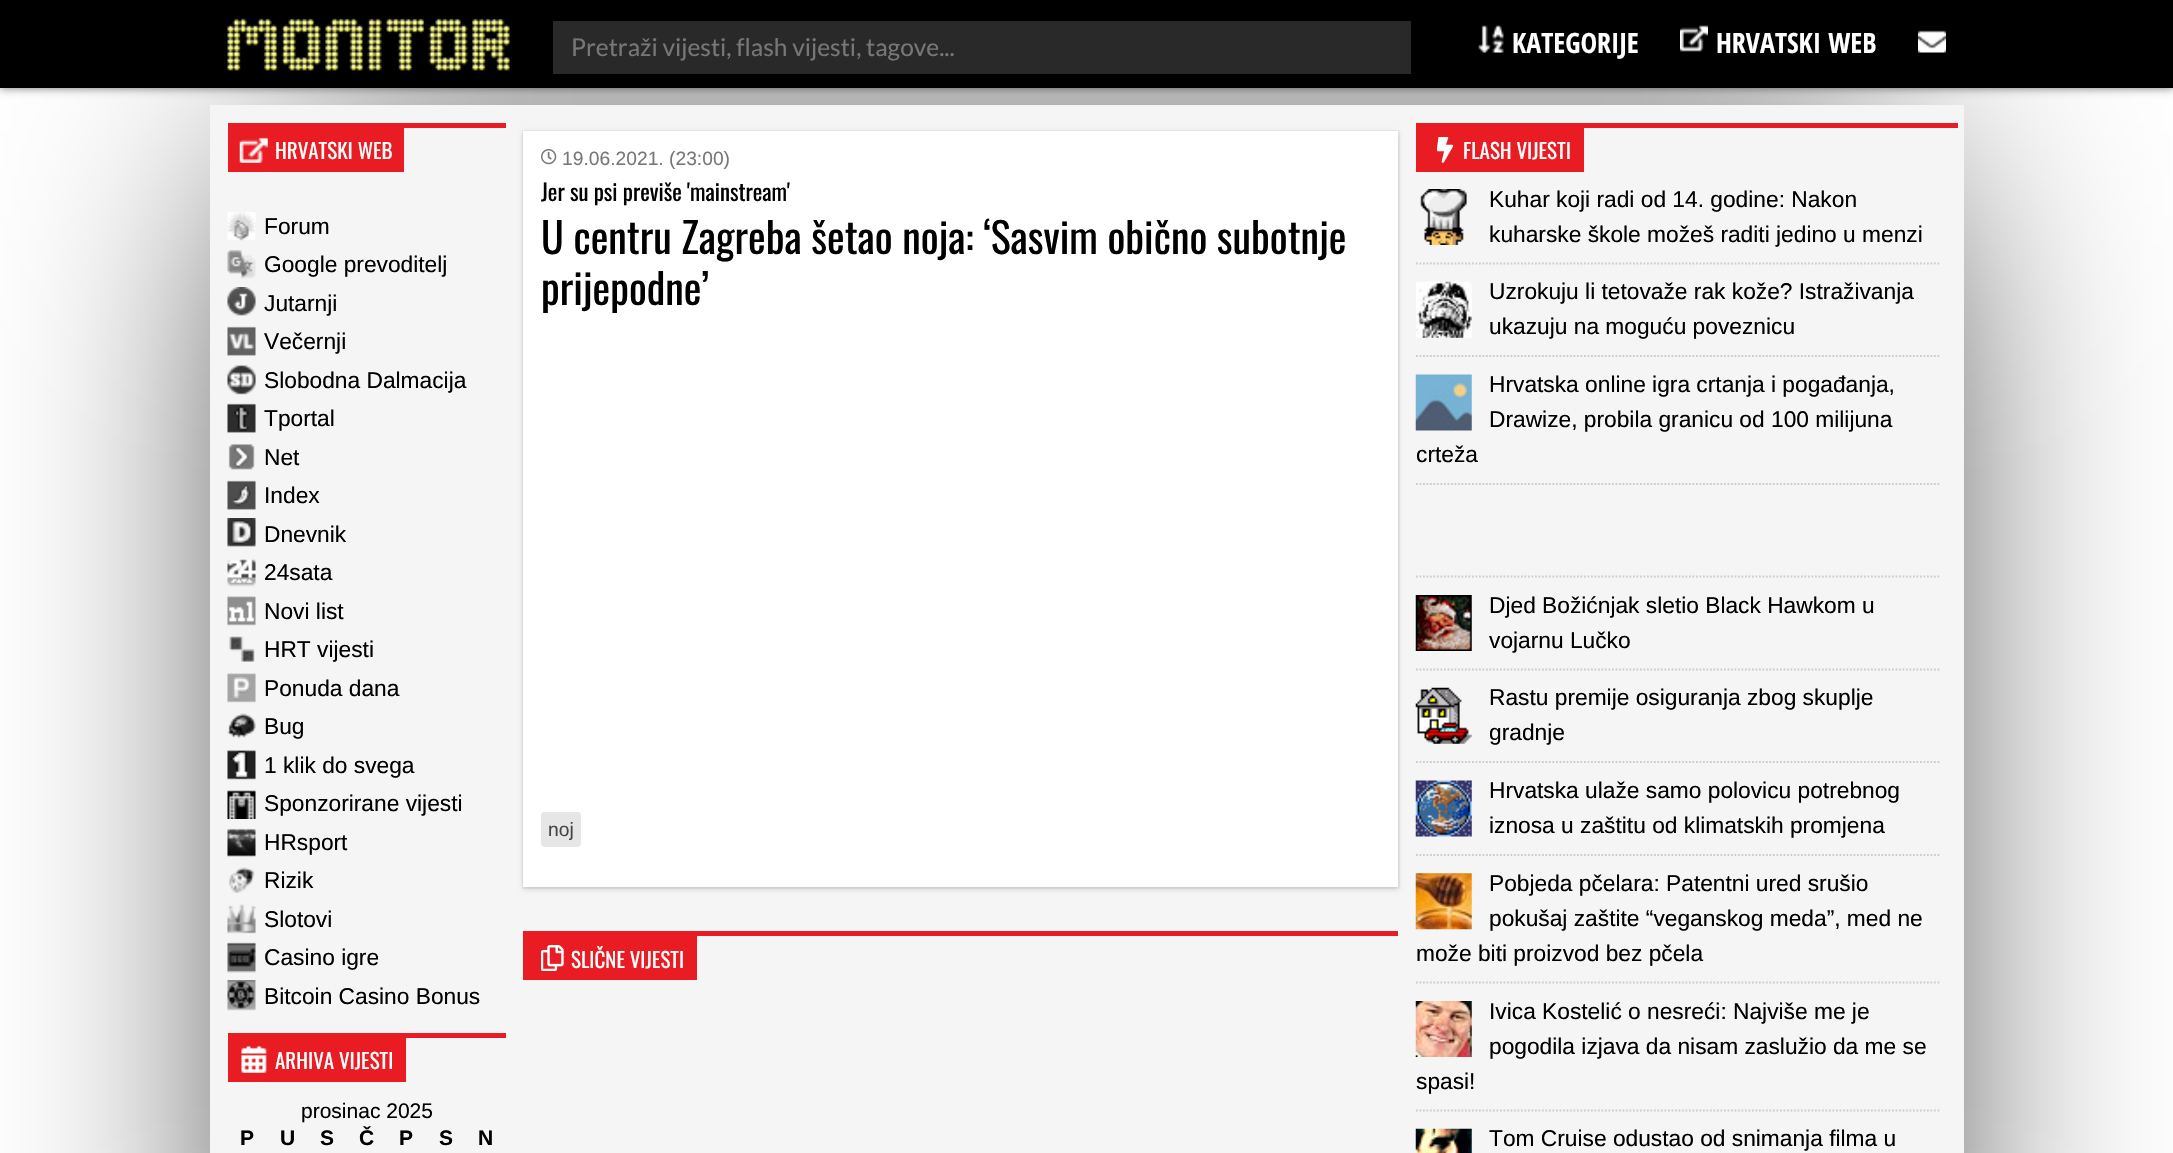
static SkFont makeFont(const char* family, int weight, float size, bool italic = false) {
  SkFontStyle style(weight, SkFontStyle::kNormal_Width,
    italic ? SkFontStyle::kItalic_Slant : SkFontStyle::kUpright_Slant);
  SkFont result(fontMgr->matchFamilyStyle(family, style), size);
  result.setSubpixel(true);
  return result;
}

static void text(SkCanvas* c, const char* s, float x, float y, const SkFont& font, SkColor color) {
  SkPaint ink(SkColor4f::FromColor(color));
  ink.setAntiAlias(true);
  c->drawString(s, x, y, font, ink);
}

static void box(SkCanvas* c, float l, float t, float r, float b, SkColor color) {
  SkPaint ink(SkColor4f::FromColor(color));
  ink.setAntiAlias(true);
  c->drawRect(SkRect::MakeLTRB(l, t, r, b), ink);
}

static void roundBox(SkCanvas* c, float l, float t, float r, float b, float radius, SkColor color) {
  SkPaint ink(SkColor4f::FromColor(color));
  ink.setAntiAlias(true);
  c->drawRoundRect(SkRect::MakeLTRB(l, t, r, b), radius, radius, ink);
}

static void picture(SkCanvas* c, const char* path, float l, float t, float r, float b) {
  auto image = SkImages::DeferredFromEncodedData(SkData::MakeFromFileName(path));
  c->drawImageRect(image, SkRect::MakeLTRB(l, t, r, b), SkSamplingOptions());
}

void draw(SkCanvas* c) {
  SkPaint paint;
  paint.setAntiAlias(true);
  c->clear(0xffffffff);
  paint.setColor(0xff777777);
  paint.setMaskFilter(SkMaskFilter::MakeBlur(kNormal_SkBlurStyle, 4.5f));
  c->drawRect(SkRect::MakeLTRB(0, 0, 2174, 88), paint);
  paint.setMaskFilter(nullptr);
  paint.setColor(0xff000000);
  paint.setMaskFilter(SkMaskFilter::MakeBlur(kNormal_SkBlurStyle, 131));
  c->drawRect(SkRect::MakeLTRB(280, 175, 1894, 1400), paint);
  paint.setMaskFilter(nullptr);
  box(c, 0, 0, 2173, 88, 0xff000000);
  picture(c, "img_01.png", 227, 18, 510, 71);
  box(c, 553, 21, 1411, 74, 0xff292929);
  SkFont face1 = makeFont("Lato", 400, 24.5f);
  text(c, "Pretraži vijesti, flash vijesti, tagove...", 571, 56, face1, 0xff777777);
  picture(c, "img_02.png", 1478, 25, 1504, 53);
  SkFont face2 = makeFont("Open Sans Condensed", 700, 28);
  text(c, "KATEGORIJE", 1512, 53, face2, 0xffffffff);
  picture(c, "img_03.png", 1680, 25, 1708, 52);
  text(c, "HRVATSKI WEB", 1716, 53, face2, 0xffffffff);
  picture(c, "img_04.png", 1918, 30, 1946, 53);
  box(c, 210, 105, 1964, 1153, 0xfff5f5f5);
  box(c, 228, 123, 506, 128, 0xffe91b23);
  box(c, 228, 128, 404, 172, 0xffe91b23);
  picture(c, "img_05.png", 239, 137, 268, 163);
  SkFont face3 = makeFont("Oswald", 400, 21);
  text(c, "HRVATSKI WEB", 275, 159, face3, 0xffffffff);
  picture(c, "img_06.png", 227, 212, 256, 241);
  SkFont face4 = makeFont("Liberation Sans", 400, 22.75f);
  text(c, "Forum", 264, 234, face4, 0xff000000);
  picture(c, "img_07.png", 227, 250, 256, 279);
  text(c, "Google prevoditelj", 264, 272, face4, 0xff000000);
  picture(c, "img_08.png", 227, 287, 256, 316);
  text(c, "Jutarnji", 264, 311, face4, 0xff000000);
  picture(c, "img_09.png", 227, 326, 256, 356);
  text(c, "Večernji", 264, 349, face4, 0xff000000);
  picture(c, "img_10.png", 227, 365, 256, 395);
  text(c, "Slobodna Dalmacija", 264, 388, face4, 0xff000000);
  picture(c, "img_11.png", 227, 403, 256, 433);
  text(c, "Tportal", 264, 426, face4, 0xff000000);
  picture(c, "img_12.png", 228, 444, 255, 470);
  text(c, "Net", 264, 465, face4, 0xff000000);
  picture(c, "img_13.png", 227, 480, 256, 510);
  text(c, "Index", 264, 503, face4, 0xff000000);
  picture(c, "img_14.png", 227, 518, 256, 547);
  text(c, "Dnevnik", 264, 542, face4, 0xff000000);
  picture(c, "img_15.png", 227, 559, 256, 587);
  text(c, "24sata", 264, 580, face4, 0xff000000);
  picture(c, "img_16.png", 227, 596, 256, 626);
  text(c, "Novi list", 264, 619, face4, 0xff000000);
  picture(c, "img_17.png", 229, 636, 255, 662);
  text(c, "HRT vijesti", 264, 657, face4, 0xff000000);
  picture(c, "img_18.png", 227, 673, 256, 703);
  text(c, "Ponuda dana", 264, 696, face4, 0xff000000);
  picture(c, "img_19.png", 227, 713, 256, 739);
  text(c, "Bug", 264, 734, face4, 0xff000000);
  picture(c, "img_20.png", 227, 750, 256, 780);
  text(c, "1 klik do svega", 264, 773, face4, 0xff000000);
  picture(c, "img_21.png", 227, 790, 256, 819);
  text(c, "Sponzorirane vijesti", 264, 811, face4, 0xff000000);
  picture(c, "img_22.png", 227, 828, 256, 857);
  text(c, "HRsport", 264, 850, face4, 0xff000000);
  picture(c, "img_23.png", 229, 867, 255, 893);
  text(c, "Rizik", 264, 888, face4, 0xff000000);
  picture(c, "img_24.png", 227, 904, 256, 934);
  text(c, "Slotovi", 264, 927, face4, 0xff000000);
  picture(c, "img_25.png", 227, 942, 256, 973);
  text(c, "Casino igre", 264, 965, face4, 0xff000000);
  picture(c, "img_26.png", 227, 980, 256, 1011);
  text(c, "Bitcoin Casino Bonus", 264, 1004, face4, 0xff000000);
  box(c, 228, 1033, 506, 1038, 0xffe91b23);
  box(c, 228, 1038, 406, 1082, 0xffe91b23);
  picture(c, "img_27.png", 241, 1046, 267, 1073);
  text(c, "ARHIVA VIJESTI", 275, 1069, face3, 0xffffffff);
  SkFont face5 = makeFont("Liberation Sans", 400, 21);
  text(c, "prosinac 2025", 301, 1118, face5, 0xff000000);
  SkFont face6 = makeFont("Liberation Sans", 700, 21);
  text(c, "P", 240, 1145, face6, 0xff000000);
  text(c, "U", 280, 1145, face6, 0xff000000);
  text(c, "S", 320, 1145, face6, 0xff000000);
  text(c, "Č", 359, 1145, face6, 0xff000000);
  text(c, "P", 399, 1145, face6, 0xff000000);
  text(c, "S", 439, 1145, face6, 0xff000000);
  text(c, "N", 478, 1145, face6, 0xff000000);
  paint.setStyle(SkPaint::kStroke_Style);
  paint.setStrokeWidth(2);
  paint.setColor(0xffebebeb);
  c->drawRect(SkRect::MakeLTRB(523, 131, 1399, 888), paint);
  paint.setStyle(SkPaint::kFill_Style);
  paint.setColor(0x29000000);
  paint.setMaskFilter(SkMaskFilter::MakeBlur(kNormal_SkBlurStyle, 2.5f));
  c->drawRect(SkRect::MakeLTRB(523, 133, 1398, 889), paint);
  paint.setMaskFilter(nullptr);
  box(c, 523, 131, 1398, 887, 0xffffffff);
  picture(c, "img_28.png", 541, 149, 557, 165);
  SkFont face7 = makeFont("Liberation Sans", 400, 19.25f);
  text(c, "19.06.2021. (23:00)", 562, 165, face7, 0xff777777);
  SkFont face8 = makeFont("Oswald", 400, 22.75f);
  text(c, "Jer su psi previše 'mainstream'", 541, 201, face8, 0xff000000);
  SkFont face9 = makeFont("Oswald", 400, 42);
  text(c, "U centru Zagreba šetao noja: ‘Sasvim obično subotnje", 541, 254, face9, 0xff000000);
  text(c, "prijepodne’", 541, 305, face9, 0xff000000);
  roundBox(c, 541, 812, 581, 847, 4, 0xffe6e6e6);
  text(c, "noj", 548, 836, face7, 0xff454545);
  box(c, 523, 931, 1398, 936, 0xffe91b23);
  box(c, 523, 936, 697, 980, 0xffe91b23);
  picture(c, "img_29.png", 541, 945, 564, 971);
  text(c, "SLIČNE VIJESTI", 571, 968, face3, 0xffffffff);
  box(c, 1416, 123, 1958, 128, 0xffe91b23);
  box(c, 1416, 128, 1584, 172, 0xffe91b23);
  picture(c, "img_30.png", 1437, 137, 1454, 163);
  text(c, "FLASH VIJESTI", 1463, 159, face3, 0xffffffff);
  paint.setStyle(SkPaint::kStroke_Style);
  paint.setStrokeWidth(1.8f);
  paint.setColor(0xffcccccc);
  paint.setPathEffect(SkDashPathEffect::Make({{1.75f, 1.75f}}, 0));
  c->drawPath(SkPathBuilder().moveTo(1416, 263.5f).lineTo(1941, 263.5f).detach(), paint);
  paint.setPathEffect(nullptr);
  picture(c, "img_31.png", 1420, 189, 1467, 245);
  text(c, "Kuhar koji radi od 14. godine: Nakon", 1489, 207, face4, 0xff000000);
  text(c, "kuharske škole možeš raditi jedino u menzi", 1489, 242, face4, 0xff000000);
  paint.setPathEffect(SkDashPathEffect::Make({{1.75f, 1.75f}}, 0));
  c->drawPath(SkPathBuilder().moveTo(1416, 356).lineTo(1941, 356).detach(), paint);
  paint.setPathEffect(nullptr);
  picture(c, "img_32.png", 1416, 281, 1472, 338);
  text(c, "Uzrokuju li tetovaže rak kože? Istraživanja", 1489, 299, face4, 0xff000000);
  text(c, "ukazuju na moguću poveznicu", 1489, 334, face4, 0xff000000);
  paint.setPathEffect(SkDashPathEffect::Make({{1.75f, 1.75f}}, 0));
  c->drawPath(SkPathBuilder().moveTo(1416, 484).lineTo(1941, 484).detach(), paint);
  paint.setPathEffect(nullptr);
  picture(c, "img_33.png", 1415, 374, 1472, 431);
  text(c, "Hrvatska online igra crtanja i pogađanja,", 1489, 392, face4, 0xff000000);
  text(c, "Drawize, probila granicu od 100 milijuna", 1489, 427, face4, 0xff000000);
  text(c, "crteža", 1416, 462, face4, 0xff000000);
  paint.setPathEffect(SkDashPathEffect::Make({{1.75f, 1.75f}}, 0));
  c->drawPath(SkPathBuilder().moveTo(1416, 576.5f).lineTo(1941, 576.5f).detach(), paint);
  paint.setPathEffect(nullptr);
  paint.setPathEffect(SkDashPathEffect::Make({{1.75f, 1.75f}}, 0));
  c->drawPath(SkPathBuilder().moveTo(1416, 669.5f).lineTo(1941, 669.5f).detach(), paint);
  paint.setPathEffect(nullptr);
  picture(c, "img_34.png", 1415, 595, 1472, 651);
  text(c, "Djed Božićnjak sletio Black Hawkom u", 1489, 613, face4, 0xff000000);
  text(c, "vojarnu Lučko", 1489, 648, face4, 0xff000000);
  paint.setPathEffect(SkDashPathEffect::Make({{1.75f, 1.75f}}, 0));
  c->drawPath(SkPathBuilder().moveTo(1416, 762).lineTo(1941, 762).detach(), paint);
  paint.setPathEffect(nullptr);
  picture(c, "img_35.png", 1415, 687, 1472, 744);
  text(c, "Rastu premije osiguranja zbog skuplje", 1489, 705, face4, 0xff000000);
  text(c, "gradnje", 1489, 740, face4, 0xff000000);
  paint.setPathEffect(SkDashPathEffect::Make({{1.75f, 1.75f}}, 0));
  c->drawPath(SkPathBuilder().moveTo(1416, 855).lineTo(1941, 855).detach(), paint);
  paint.setPathEffect(nullptr);
  picture(c, "img_36.png", 1415, 780, 1472, 837);
  text(c, "Hrvatska ulaže samo polovicu potrebnog", 1489, 798, face4, 0xff000000);
  text(c, "iznosa u zaštitu od klimatskih promjena", 1489, 833, face4, 0xff000000);
  paint.setPathEffect(SkDashPathEffect::Make({{1.75f, 1.75f}}, 0));
  c->drawPath(SkPathBuilder().moveTo(1416, 982.5f).lineTo(1941, 982.5f).detach(), paint);
  paint.setPathEffect(nullptr);
  picture(c, "img_37.png", 1415, 873, 1472, 930);
  text(c, "Pobjeda pčelara: Patentni ured srušio", 1489, 891, face4, 0xff000000);
  text(c, "pokušaj zaštite “veganskog meda”, med ne", 1489, 926, face4, 0xff000000);
  text(c, "može biti proizvod bez pčela", 1416, 961, face4, 0xff000000);
  paint.setPathEffect(SkDashPathEffect::Make({{1.75f, 1.75f}}, 0));
  c->drawPath(SkPathBuilder().moveTo(1416, 1110.5f).lineTo(1941, 1110.5f).detach(), paint);
  paint.setPathEffect(nullptr);
  picture(c, "img_38.png", 1415, 1001, 1472, 1057);
  text(c, "Ivica Kostelić o nesreći: Najviše me je", 1489, 1019, face4, 0xff000000);
  text(c, "pogodila izjava da nisam zaslužio da me se", 1489, 1054, face4, 0xff000000);
  text(c, "spasi!", 1416, 1089, face4, 0xff000000);
  picture(c, "img_39.png", 1415, 1128, 1472, 1153);
  text(c, "Tom Cruise odustao od snimanja filma u", 1489, 1146, face4, 0xff000000);
}
